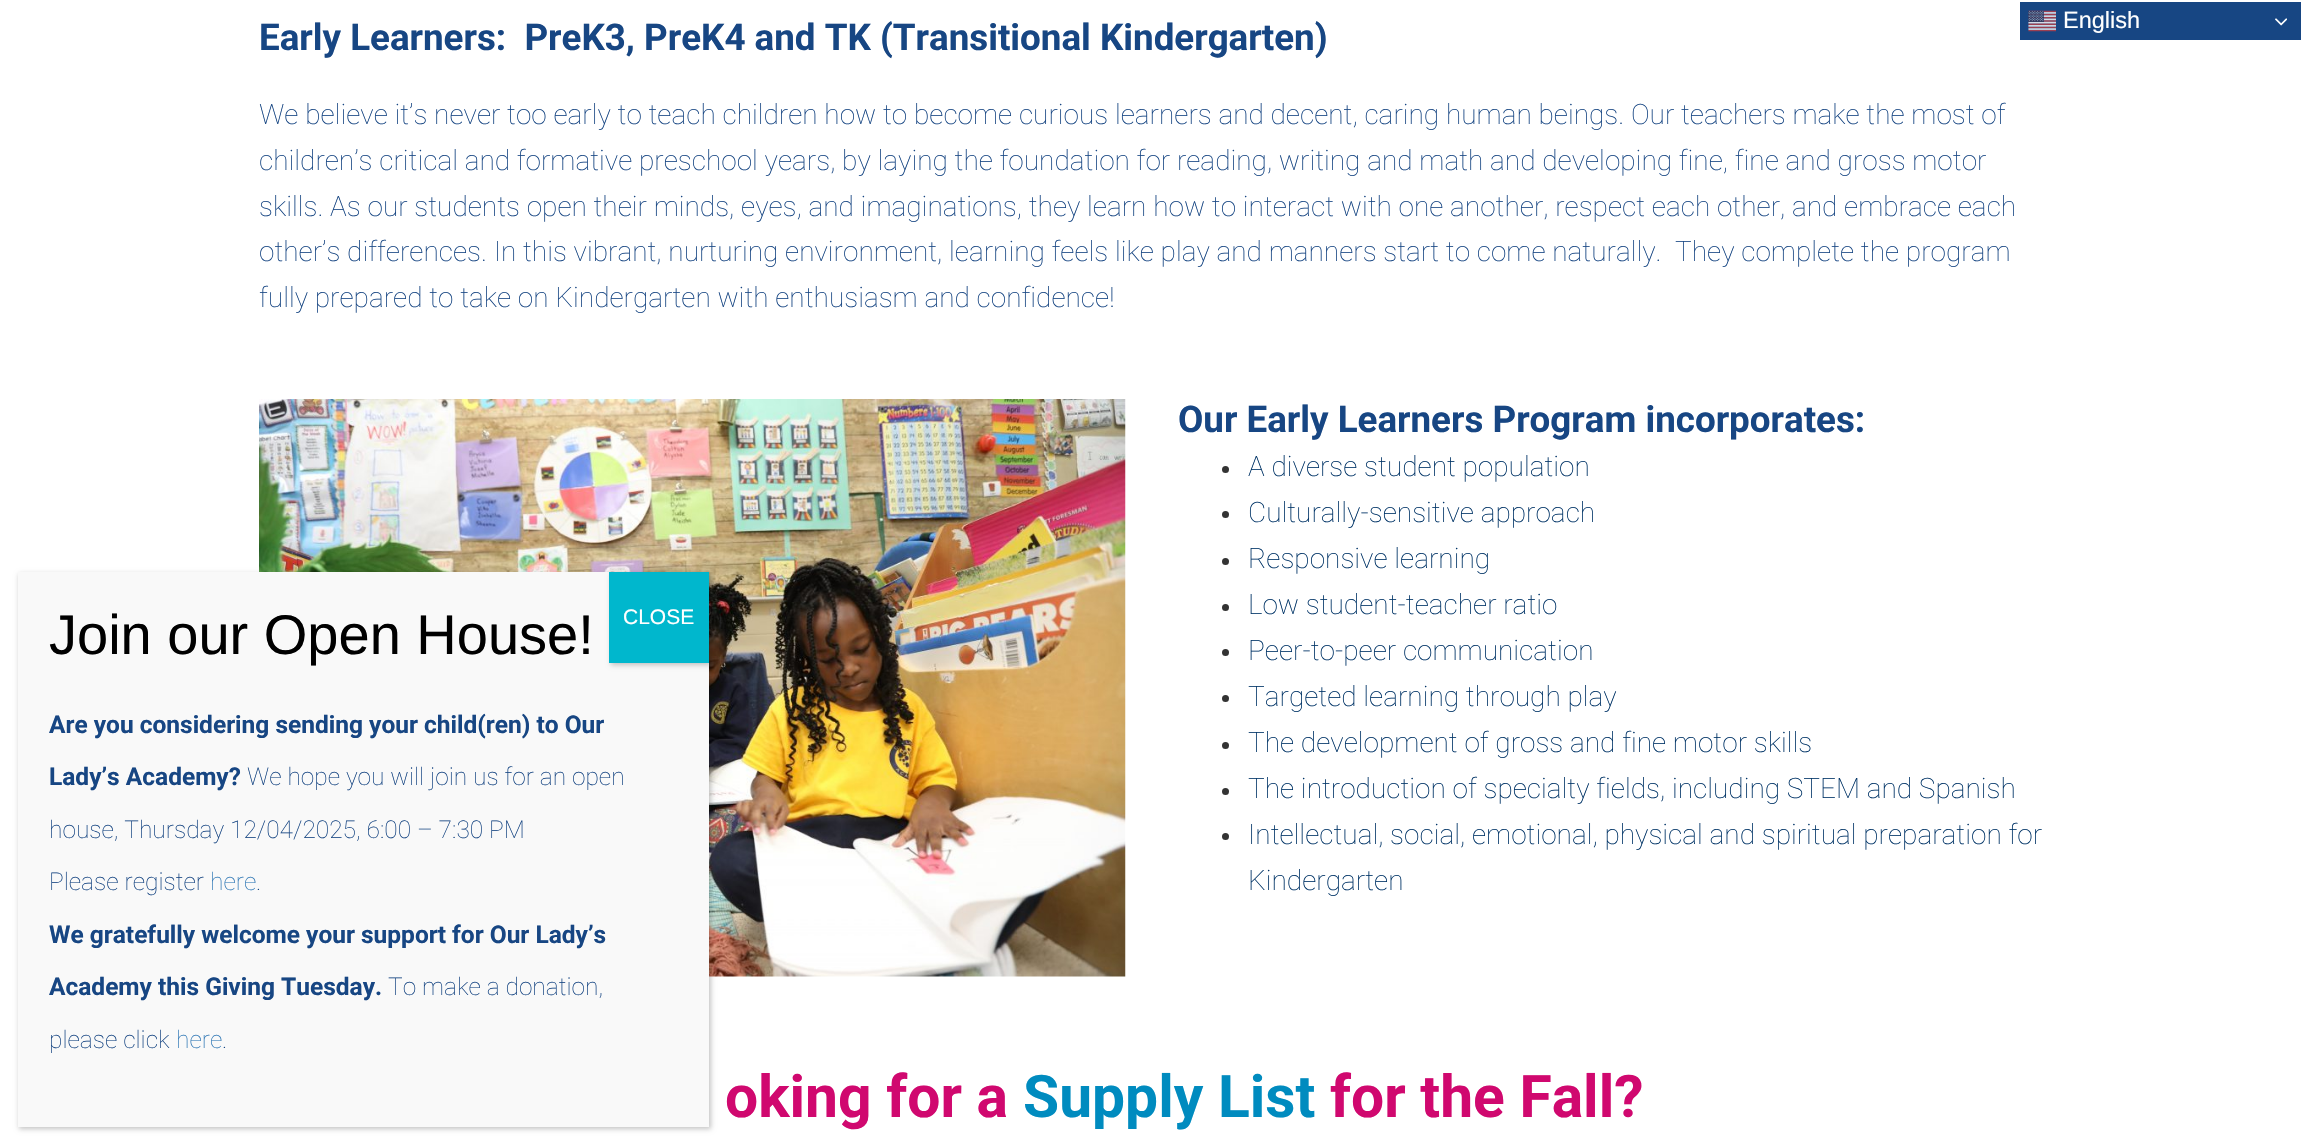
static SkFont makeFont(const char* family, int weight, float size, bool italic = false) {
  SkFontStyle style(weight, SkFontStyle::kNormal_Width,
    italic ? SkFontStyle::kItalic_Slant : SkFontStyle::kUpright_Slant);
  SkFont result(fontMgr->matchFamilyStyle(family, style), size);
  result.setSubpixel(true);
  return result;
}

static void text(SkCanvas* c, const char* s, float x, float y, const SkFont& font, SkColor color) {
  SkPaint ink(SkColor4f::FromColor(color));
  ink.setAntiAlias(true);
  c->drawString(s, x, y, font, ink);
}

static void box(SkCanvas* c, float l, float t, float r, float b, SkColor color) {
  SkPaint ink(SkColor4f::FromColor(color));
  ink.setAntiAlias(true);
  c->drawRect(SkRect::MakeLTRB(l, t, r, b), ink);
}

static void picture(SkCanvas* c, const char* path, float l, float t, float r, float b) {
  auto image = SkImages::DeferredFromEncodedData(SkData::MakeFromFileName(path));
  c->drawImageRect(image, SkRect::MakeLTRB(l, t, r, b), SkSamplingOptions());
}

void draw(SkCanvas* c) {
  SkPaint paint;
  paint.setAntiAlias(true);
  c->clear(0xffffffff);
  SkFont face1 = makeFont("Roboto", 700, 36.75f);
  text(c, "Early Learners:  PreK3, PreK4 and TK (Transitional Kindergarten)", 259, 50, face1, 0xff174683);
  SkFont face2 = makeFont("Roboto", 100, 28);
  text(c, "We believe it’s never too early to teach children how to become curious learners and decent, caring human beings. Our teachers make the most of", 259, 124, face2, 0xff174683);
  text(c, "children’s critical and formative preschool years, by laying the foundation for reading, writing and math and developing fine, fine and gross motor", 259, 170, face2, 0xff174683);
  text(c, "skills. As our students open their minds, eyes, and imaginations, they learn how to interact with one another, respect each other, and embrace each", 259, 216, face2, 0xff174683);
  text(c, "other’s differences. In this vibrant, nurturing environment, learning feels like play and manners start to come naturally.  They complete the program", 259, 261, face2, 0xff174683);
  text(c, "fully prepared to take on Kindergarten with enthusiasm and confidence!", 259, 307, face2, 0xff174683);
  picture(c, "img_01.png", 259, 399, 1126, 977);
  text(c, "Our Early Learners Program incorporates:", 1178, 432, face1, 0xff174683);
  paint.setColor(0xff333333);
  c->drawCircle(1225.5f, 469.5f, 3.5f, paint);
  text(c, "A diverse student population", 1248, 476, face2, 0xff003366);
  c->drawCircle(1225.5f, 514.5f, 3.5f, paint);
  text(c, "Culturally-sensitive approach", 1248, 522, face2, 0xff003366);
  c->drawCircle(1225.5f, 561.5f, 3.5f, paint);
  text(c, "Responsive learning", 1248, 568, face2, 0xff003366);
  c->drawCircle(1225.5f, 607.5f, 3.5f, paint);
  text(c, "Low student-teacher ratio", 1248, 614, face2, 0xff003366);
  c->drawCircle(1225.5f, 652.5f, 3.5f, paint);
  text(c, "Peer-to-peer communication", 1248, 660, face2, 0xff003366);
  c->drawCircle(1225.5f, 698.5f, 3.5f, paint);
  text(c, "Targeted learning through play", 1248, 706, face2, 0xff003366);
  c->drawCircle(1225.5f, 745.5f, 3.5f, paint);
  text(c, "The development of gross and fine motor skills", 1248, 752, face2, 0xff003366);
  c->drawCircle(1225.5f, 791.5f, 3.5f, paint);
  text(c, "The introduction of specialty fields, including STEM and Spanish", 1248, 798, face2, 0xff003366);
  c->drawCircle(1225.5f, 836.5f, 3.5f, paint);
  text(c, "Intellectual, social, emotional, physical and spiritual preparation for", 1248, 844, face2, 0xff003366);
  text(c, "Kindergarten", 1248, 890, face2, 0xff003366);
  SkFont face3 = makeFont("Roboto", 700, 58.75f);
  text(c, "oking for a", 725, 1117, face3, 0xffd0086f);
  text(c, "Supply List", 1023, 1117, face3, 0xff008bbf);
  text(c, "for the Fall?", 1330, 1117, face3, 0xffd0086f);
  box(c, 2020, 2, 2301, 40, 0xff174683);
  picture(c, "img_02.png", 2028, 10, 2056, 32);
  SkFont face4 = makeFont("Liberation Sans", 400, 23.5f);
  text(c, "English", 2063, 28, face4, 0xffffffff);
  picture(c, "img_03.png", 2275, 18, 2287, 26);
  paint.setColor(0x3b020202);
  paint.setMaskFilter(SkMaskFilter::MakeBlur(kNormal_SkBlurStyle, 2.5f));
  c->drawRect(SkRect::MakeLTRB(19, 574, 711, 1129), paint);
  paint.setMaskFilter(nullptr);
  box(c, 18, 572, 709, 1127, 0xfff9f9f9);
  SkFont face5 = makeFont("Liberation Sans", 400, 56);
  text(c, "Join our Open House!", 49, 654, face5, 0xff000000);
  paint.setMaskFilter(SkMaskFilter::MakeBlur(kNormal_SkBlurStyle, 2.5f));
  c->drawRect(SkRect::MakeLTRB(611, 574, 711, 665), paint);
  paint.setMaskFilter(nullptr);
  box(c, 609, 572, 709, 663, 0xff00b7cd);
  SkFont face6 = makeFont("Liberation Sans", 400, 21);
  text(c, "CLOSE", 623, 624, face6, 0xffffffff);
  SkFont face7 = makeFont("Roboto", 700, 24.5f);
  text(c, "Are you considering sending your child(ren) to Our", 49, 733, face7, 0xff174683);
  text(c, "Lady’s Academy?", 49, 785, face7, 0xff174683);
  SkFont face8 = makeFont("Roboto", 100, 24.5f);
  text(c, "We hope you will join us for an open", 247, 785, face8, 0xff174683);
  text(c, "house, Thursday 12/04/2025, 6:00 – 7:30 PM", 49, 838, face8, 0xff174683);
  text(c, "Please register", 49, 890, face8, 0xff174683);
  text(c, "here", 210, 890, face8, 0xff337ab7);
  text(c, ".", 256, 890, face8, 0xff174683);
  text(c, "We gratefully welcome your support for Our Lady’s", 49, 943, face7, 0xff174683);
  text(c, "Academy this Giving Tuesday.", 49, 995, face7, 0xff174683);
  text(c, "To make a donation,", 388, 995, face8, 0xff174683);
  text(c, "please click", 49, 1048, face8, 0xff174683);
  text(c, "here", 176, 1048, face8, 0xff337ab7);
  text(c, ".", 222, 1048, face8, 0xff174683);
}
